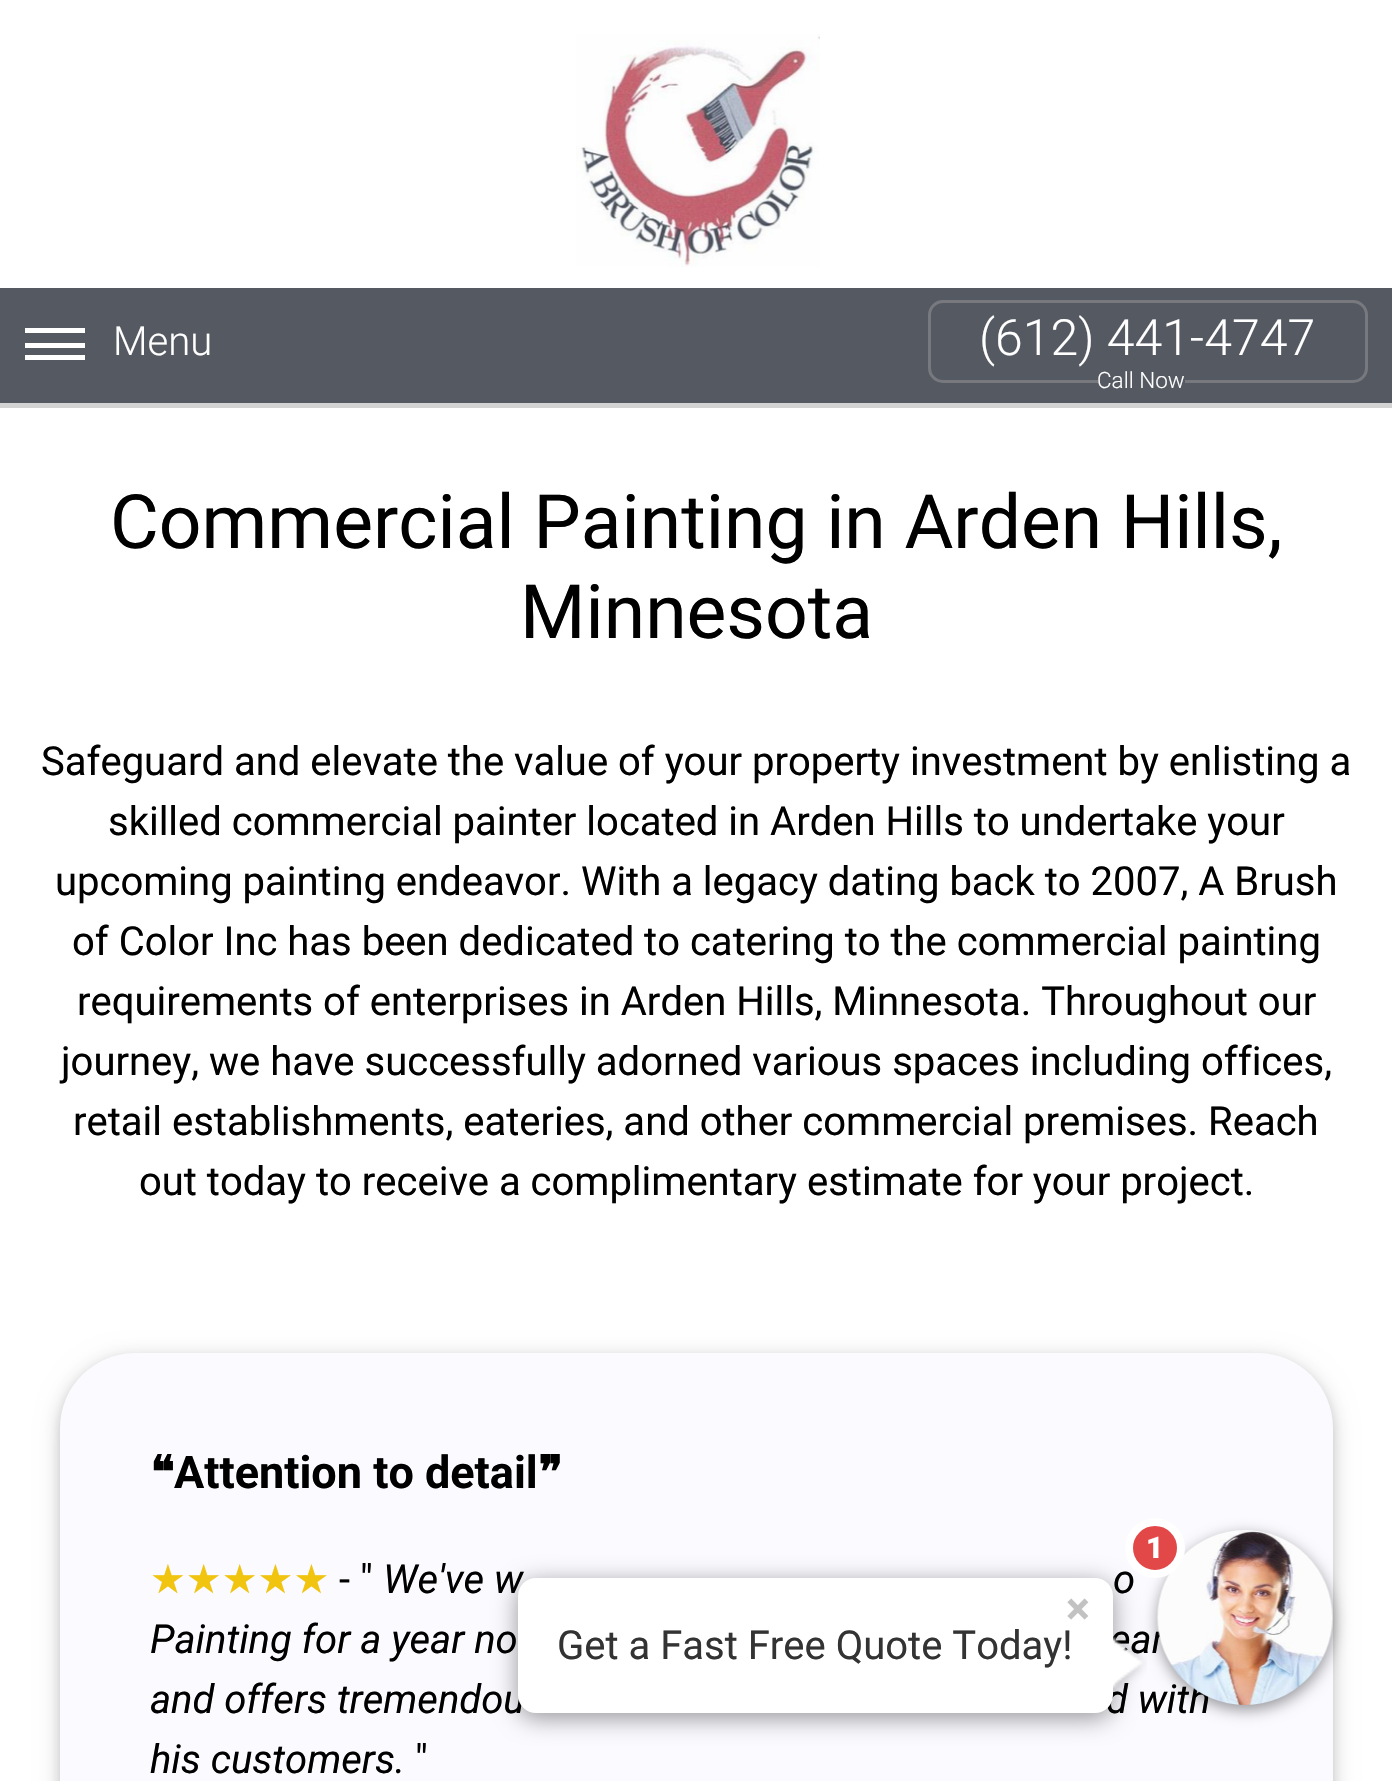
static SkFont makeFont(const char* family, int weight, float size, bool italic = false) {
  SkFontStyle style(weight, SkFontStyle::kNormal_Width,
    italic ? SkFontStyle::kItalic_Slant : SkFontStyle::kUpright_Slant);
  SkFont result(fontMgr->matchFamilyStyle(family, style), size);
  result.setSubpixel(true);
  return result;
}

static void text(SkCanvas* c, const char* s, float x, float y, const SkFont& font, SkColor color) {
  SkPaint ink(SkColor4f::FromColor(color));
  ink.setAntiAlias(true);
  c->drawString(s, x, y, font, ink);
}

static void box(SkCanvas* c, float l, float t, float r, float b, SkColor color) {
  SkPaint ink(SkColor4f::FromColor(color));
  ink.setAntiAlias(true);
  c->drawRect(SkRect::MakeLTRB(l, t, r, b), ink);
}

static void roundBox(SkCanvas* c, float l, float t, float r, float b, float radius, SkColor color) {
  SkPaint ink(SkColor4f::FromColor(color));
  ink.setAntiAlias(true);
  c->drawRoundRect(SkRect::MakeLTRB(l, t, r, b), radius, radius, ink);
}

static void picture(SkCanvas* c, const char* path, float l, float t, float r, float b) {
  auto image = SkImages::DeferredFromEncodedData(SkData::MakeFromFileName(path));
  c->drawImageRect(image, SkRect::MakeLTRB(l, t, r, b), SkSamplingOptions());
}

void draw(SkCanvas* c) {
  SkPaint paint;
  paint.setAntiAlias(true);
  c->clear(0xffffffff);
  paint.setColor(0xffd3d3d3);
  c->drawPath(SkPathBuilder().moveTo(0, 402).lineTo(0, 408).lineTo(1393, 408).lineTo(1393, 5).lineTo(1392, 5).lineTo(1392, 402).close().detach(), paint);
  picture(c, "img_01.png", 576, 34, 820, 267);
  box(c, 0, 288, 1392, 403, 0xff555962);
  box(c, 25, 355, 85, 360, 0xffffffff);
  box(c, 25, 343, 85, 348, 0xffffffff);
  box(c, 25, 328, 85, 333, 0xffffffff);
  SkFont face1 = makeFont("Roboto", 300, 40);
  text(c, "Menu", 113, 355, face1, 0xffffffff);
  paint.setStyle(SkPaint::kStroke_Style);
  paint.setStrokeWidth(3);
  paint.setColor(0xff77797f);
  c->drawRoundRect(SkRect::MakeLTRB(929.5f, 301.5f, 1366.5f, 381.5f), 13.5f, 13.5f, paint);
  SkFont face2 = makeFont("Roboto", 300, 50);
  text(c, "(612) 441-4747", 979, 355, face2, 0xffffffff);
  box(c, 1098, 380, 1185, 383, 0xff555962);
  SkFont face3 = makeFont("Roboto", 300, 22.5f);
  text(c, "Call Now", 1097, 388, face3, 0xffffffff);
  SkFont face4 = makeFont("Roboto", 400, 75);
  text(c, "Commercial Painting in Arden Hills,", 110, 548, face4, 0xff000000);
  text(c, "Minnesota", 520, 638, face4, 0xff000000);
  SkFont face5 = makeFont("Roboto", 400, 40);
  text(c, "Safeguard and elevate the value of your property investment by enlisting a", 41, 775, face5, 0xff000000);
  text(c, "skilled commercial painter located in Arden Hills to undertake your", 108, 835, face5, 0xff000000);
  text(c, "upcoming painting endeavor. With a legacy dating back to 2007, A Brush", 55, 895, face5, 0xff000000);
  text(c, "of Color Inc has been dedicated to catering to the commercial painting", 72, 955, face5, 0xff000000);
  text(c, "requirements of enterprises in Arden Hills, Minnesota. Throughout our", 77, 1015, face5, 0xff000000);
  text(c, "journey, we have successfully adorned various spaces including offices,", 61, 1075, face5, 0xff000000);
  text(c, "retail establishments, eateries, and other commercial premises. Reach", 73, 1135, face5, 0xff000000);
  text(c, "out today to receive a complimentary estimate for your project.", 139, 1195, face5, 0xff000000);
  paint.setStyle(SkPaint::kFill_Style);
  paint.setColor(0x1f000000);
  paint.setMaskFilter(SkMaskFilter::MakeBlur(kNormal_SkBlurStyle, 12.5f));
  c->drawRoundRect(SkRect::MakeLTRB(60, 1358, 1333, 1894), 75, 75, paint);
  paint.setMaskFilter(nullptr);
  paint.setColor(0x29000000);
  paint.setMaskFilter(SkMaskFilter::MakeBlur(kNormal_SkBlurStyle, 6));
  c->drawRoundRect(SkRect::MakeLTRB(60, 1358, 1333, 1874), 75, 75, paint);
  paint.setMaskFilter(nullptr);
  roundBox(c, 60, 1353, 1333, 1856, 75, 0xfffafaff);
  SkFont face6 = makeFont("DejaVu Sans", 700, 45);
  text(c, "❝", 150, 1488, face6, 0xff000000);
  SkFont face7 = makeFont("Roboto", 700, 45);
  text(c, "Attention to detail", 174, 1488, face7, 0xff000000);
  text(c, "❞", 538, 1488, face6, 0xff000000);
  SkFont face8 = makeFont("DejaVu Sans", 400, 40);
  text(c, "★★★★★", 150, 1593, face8, 0xfff1c40f);
  text(c, "- \"", 339, 1593, face5, 0xff000000);
  SkFont face9 = makeFont("Roboto", 400, 40, true);
  text(c, "We've w", 383, 1593, face9, 0xff000000);
  text(c, "o", 1113, 1593, face9, 0xff000000);
  text(c, "Painting for a year no", 150, 1653, face9, 0xff000000);
  text(c, "ear", 1110, 1653, face9, 0xff000000);
  text(c, "and offers tremendou", 150, 1713, face9, 0xff000000);
  text(c, "d with", 1106, 1713, face9, 0xff000000);
  text(c, "his customers.", 150, 1773, face9, 0xff000000);
  text(c, "\"", 415, 1773, face5, 0xff000000);
  paint.setColor(0x66000000);
  paint.setMaskFilter(SkMaskFilter::MakeBlur(kNormal_SkBlurStyle, 7.5f));
  c->drawRoundRect(SkRect::MakeLTRB(1158, 1535, 1333, 1710), 87.5f, 87.5f, paint);
  paint.setMaskFilter(nullptr);
  picture(c, "img_02.png", 1157, 1530, 1333, 1705);
  paint.setMaskFilter(SkMaskFilter::MakeBlur(kNormal_SkBlurStyle, 12.5f));
  c->drawRoundRect(SkRect::MakeLTRB(518, 1583, 1113, 1718), 18, 18, paint);
  paint.setMaskFilter(nullptr);
  paint.setColor(0xffe24848);
  c->drawCircle(1155, 1548, 26, paint);
  paint.setStyle(SkPaint::kStroke_Style);
  paint.setStrokeWidth(8);
  paint.setColor(0xffffffff);
  c->drawCircle(1155, 1548, 26, paint);
  SkFont face10 = makeFont("Roboto", 900, 30);
  text(c, "1", 1146, 1558, face10, 0xffffffff);
  roundBox(c, 518, 1578, 1113, 1713, 18, 0xffffffff);
  text(c, "×", 1066, 1624, face7, 0xffc2c2c2);
  text(c, "Get a Fast Free Quote Today!", 557, 1659, face5, 0xff333333);
  picture(c, "img_03.png", 1113, 1636, 1147, 1688);
}
